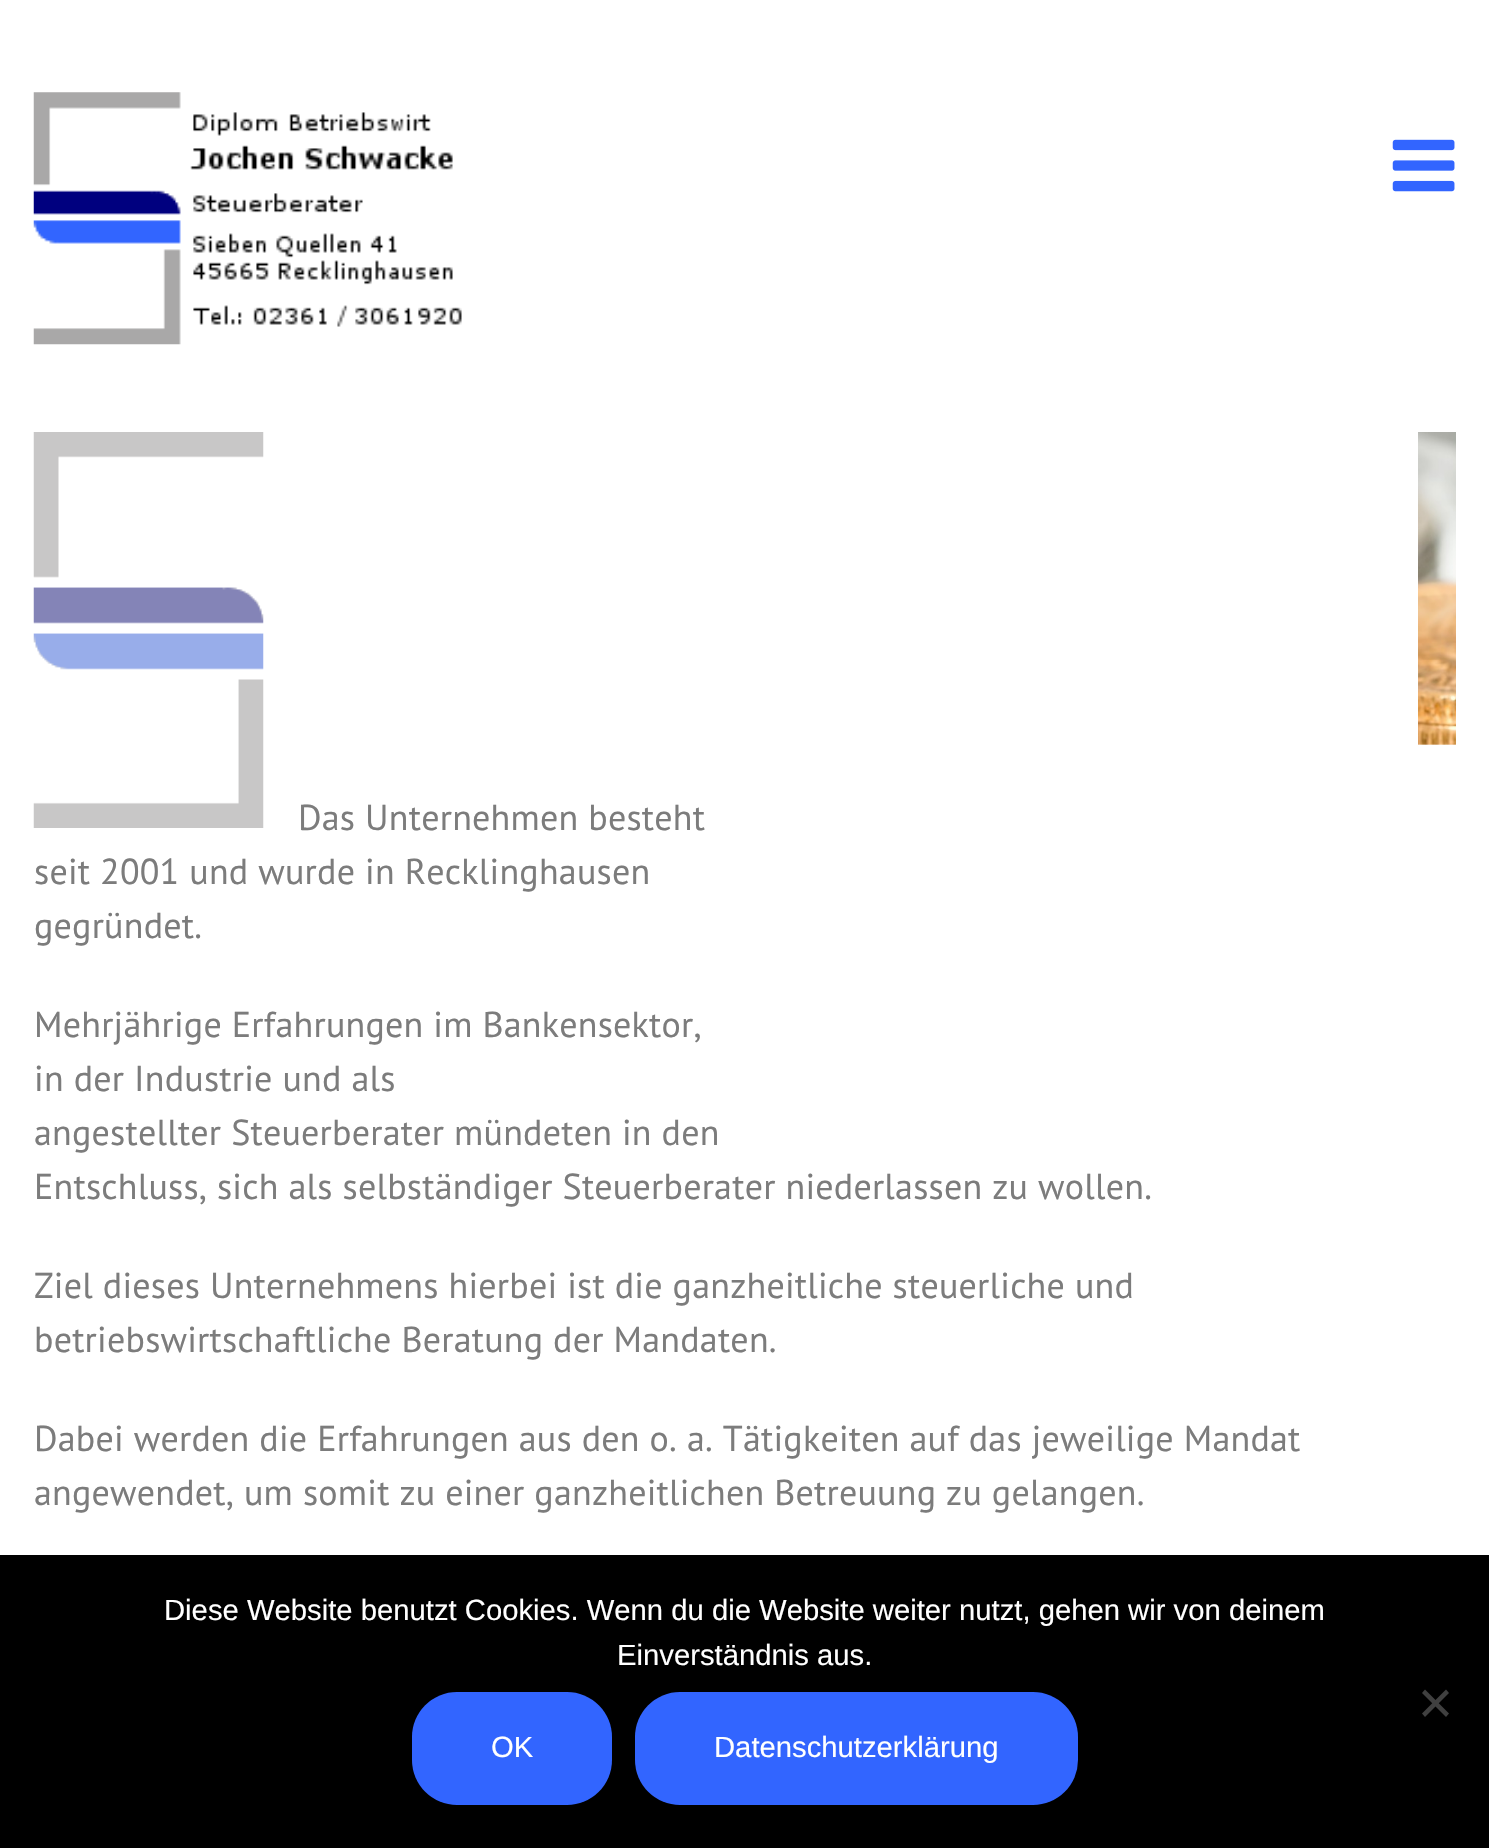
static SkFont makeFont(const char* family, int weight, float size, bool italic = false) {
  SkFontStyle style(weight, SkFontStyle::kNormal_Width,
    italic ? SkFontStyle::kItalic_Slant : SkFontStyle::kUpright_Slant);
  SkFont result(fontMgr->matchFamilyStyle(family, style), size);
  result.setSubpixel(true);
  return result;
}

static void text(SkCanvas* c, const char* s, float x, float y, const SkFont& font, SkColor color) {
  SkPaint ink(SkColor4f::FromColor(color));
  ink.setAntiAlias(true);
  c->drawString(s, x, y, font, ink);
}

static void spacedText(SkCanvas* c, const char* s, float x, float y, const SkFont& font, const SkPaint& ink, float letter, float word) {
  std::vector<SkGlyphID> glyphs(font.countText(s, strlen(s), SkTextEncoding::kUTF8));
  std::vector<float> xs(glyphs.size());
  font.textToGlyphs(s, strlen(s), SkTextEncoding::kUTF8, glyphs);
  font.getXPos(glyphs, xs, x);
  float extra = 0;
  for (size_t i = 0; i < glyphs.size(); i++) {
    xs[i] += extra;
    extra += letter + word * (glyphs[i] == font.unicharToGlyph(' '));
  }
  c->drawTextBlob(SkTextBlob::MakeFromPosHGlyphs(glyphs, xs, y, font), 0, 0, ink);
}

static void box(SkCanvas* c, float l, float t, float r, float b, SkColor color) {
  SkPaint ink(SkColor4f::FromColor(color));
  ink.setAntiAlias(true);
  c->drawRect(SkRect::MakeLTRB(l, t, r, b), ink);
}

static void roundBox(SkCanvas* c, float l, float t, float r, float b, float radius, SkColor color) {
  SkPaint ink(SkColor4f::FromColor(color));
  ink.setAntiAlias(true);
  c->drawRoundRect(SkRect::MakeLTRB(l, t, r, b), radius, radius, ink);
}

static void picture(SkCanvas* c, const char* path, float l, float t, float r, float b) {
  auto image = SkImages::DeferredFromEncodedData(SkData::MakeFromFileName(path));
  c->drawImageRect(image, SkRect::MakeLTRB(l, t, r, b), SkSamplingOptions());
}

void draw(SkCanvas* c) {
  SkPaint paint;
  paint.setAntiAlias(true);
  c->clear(0xffffffff);
  picture(c, "img_01.png", 33, 92, 462, 345);
  picture(c, "img_02.png", 1392, 139, 1455, 192);
  picture(c, "img_03.png", 33, 432, 264, 828);
  picture(c, "img_04.png", 1418, 432, 1456, 745);
  SkFont face1 = makeFont("PT Sans", 400, 36);
  paint.setColor(0xff7c7c7c);
  spacedText(c, "Das Unternehmen besteht", 298, 830, face1, paint, 0.23f, 0);
  spacedText(c, "seit 2001 und wurde in Recklinghausen", 34, 884, face1, paint, 0.23f, 0);
  spacedText(c, "gegründet.", 34, 938, face1, paint, 0.23f, 0);
  spacedText(c, "Mehrjährige Erfahrungen im Bankensektor,", 34, 1037, face1, paint, 0.23f, 0);
  spacedText(c, "in der Industrie und als", 34, 1091, face1, paint, 0.23f, 0);
  spacedText(c, "angestellter Steuerberater mündeten in den", 34, 1145, face1, paint, 0.23f, 0);
  spacedText(c, "Entschluss, sich als selbständiger Steuerberater niederlassen zu wollen.", 34, 1199, face1, paint, 0.23f, 0);
  spacedText(c, "Ziel dieses Unternehmens hierbei ist die ganzheitliche steuerliche und", 34, 1298, face1, paint, 0.23f, 0);
  spacedText(c, "betriebswirtschaftliche Beratung der Mandaten.", 34, 1352, face1, paint, 0.23f, 0);
  spacedText(c, "Dabei werden die Erfahrungen aus den o. a. Tätigkeiten auf das jeweilige Mandat", 34, 1451, face1, paint, 0.23f, 0);
  spacedText(c, "angewendet, um somit zu einer ganzheitlichen Betreuung zu gelangen.", 34, 1505, face1, paint, 0.23f, 0);
  box(c, 0, 1555, 1489, 1848, 0xff000000);
  SkFont face2 = makeFont("Liberation Sans", 400, 29.25f);
  text(c, "Diese Website benutzt Cookies. Wenn du die Website weiter nutzt, gehen wir von deinem", 164, 1620, face2, 0xffffffff);
  text(c, "Einverständnis aus.", 617, 1665, face2, 0xffffffff);
  paint.setColor(0xff404040);
  c->drawPath(SkPathBuilder().moveTo(1446, 1689.5f).lineTo(1449, 1693).lineTo(1425, 1717).lineTo(1422, 1713.5f).close().detach(), paint);
  c->drawPath(SkPathBuilder().moveTo(1422, 1693).lineTo(1425, 1689.5f).lineTo(1449, 1713.5f).lineTo(1446, 1717).close().detach(), paint);
  roundBox(c, 412, 1692, 612, 1805, 45, 0xff3265ff);
  text(c, "OK", 491, 1757, face2, 0xffffffff);
  roundBox(c, 635, 1692, 1078, 1805, 45, 0xff3265ff);
  text(c, "Datenschutzerklärung", 714, 1757, face2, 0xffffffff);
}
